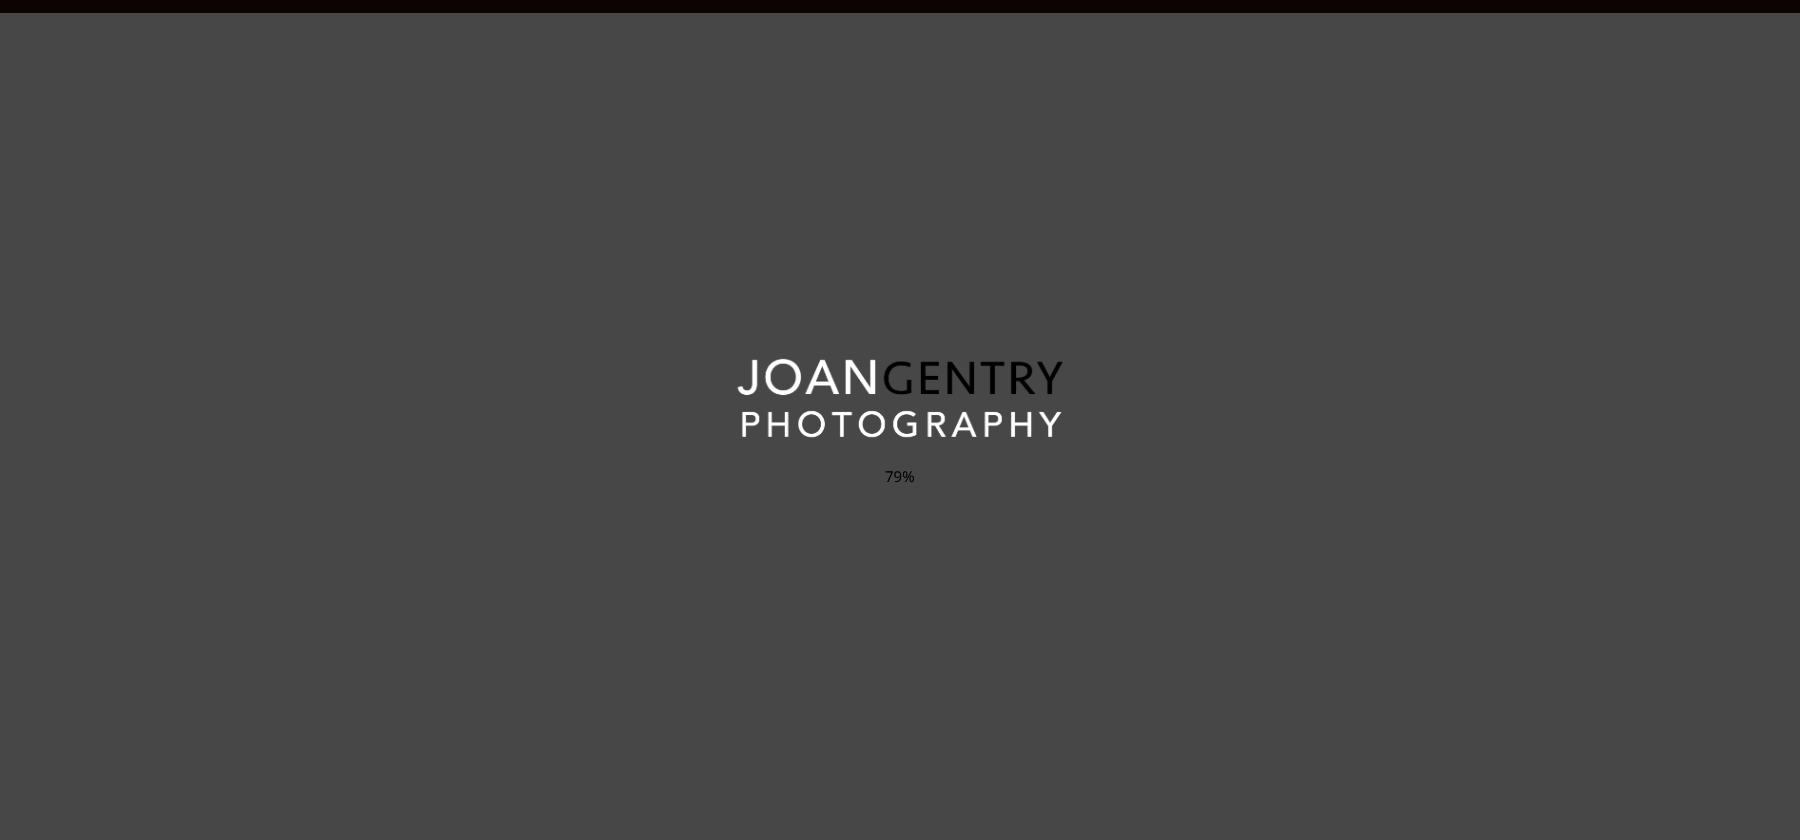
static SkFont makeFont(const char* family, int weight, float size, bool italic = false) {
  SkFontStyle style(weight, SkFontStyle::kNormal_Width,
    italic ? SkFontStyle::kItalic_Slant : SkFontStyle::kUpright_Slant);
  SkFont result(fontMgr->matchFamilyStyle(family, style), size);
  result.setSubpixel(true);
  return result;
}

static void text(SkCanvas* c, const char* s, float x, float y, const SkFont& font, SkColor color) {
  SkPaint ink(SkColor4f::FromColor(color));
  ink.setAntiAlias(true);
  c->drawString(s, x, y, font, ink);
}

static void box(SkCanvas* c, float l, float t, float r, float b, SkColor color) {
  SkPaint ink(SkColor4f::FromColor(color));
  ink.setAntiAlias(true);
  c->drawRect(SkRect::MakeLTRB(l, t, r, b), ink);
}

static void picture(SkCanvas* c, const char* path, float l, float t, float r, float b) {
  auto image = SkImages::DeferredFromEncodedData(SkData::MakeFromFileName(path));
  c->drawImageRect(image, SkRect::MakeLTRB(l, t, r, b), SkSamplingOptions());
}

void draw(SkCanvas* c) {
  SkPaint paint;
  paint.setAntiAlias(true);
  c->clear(0xff474747);
  box(c, 0, 0, 1800, 13, 0xff0c0303);
  picture(c, "img_02.png", 737, 359, 1063, 438);
  picture(c, "img_01.png", 737, 358, 1063, 438);
  SkFont face1 = makeFont("Open Sans", 400, 15);
  text(c, "79%", 885, 482, face1, 0xff000000);
}
